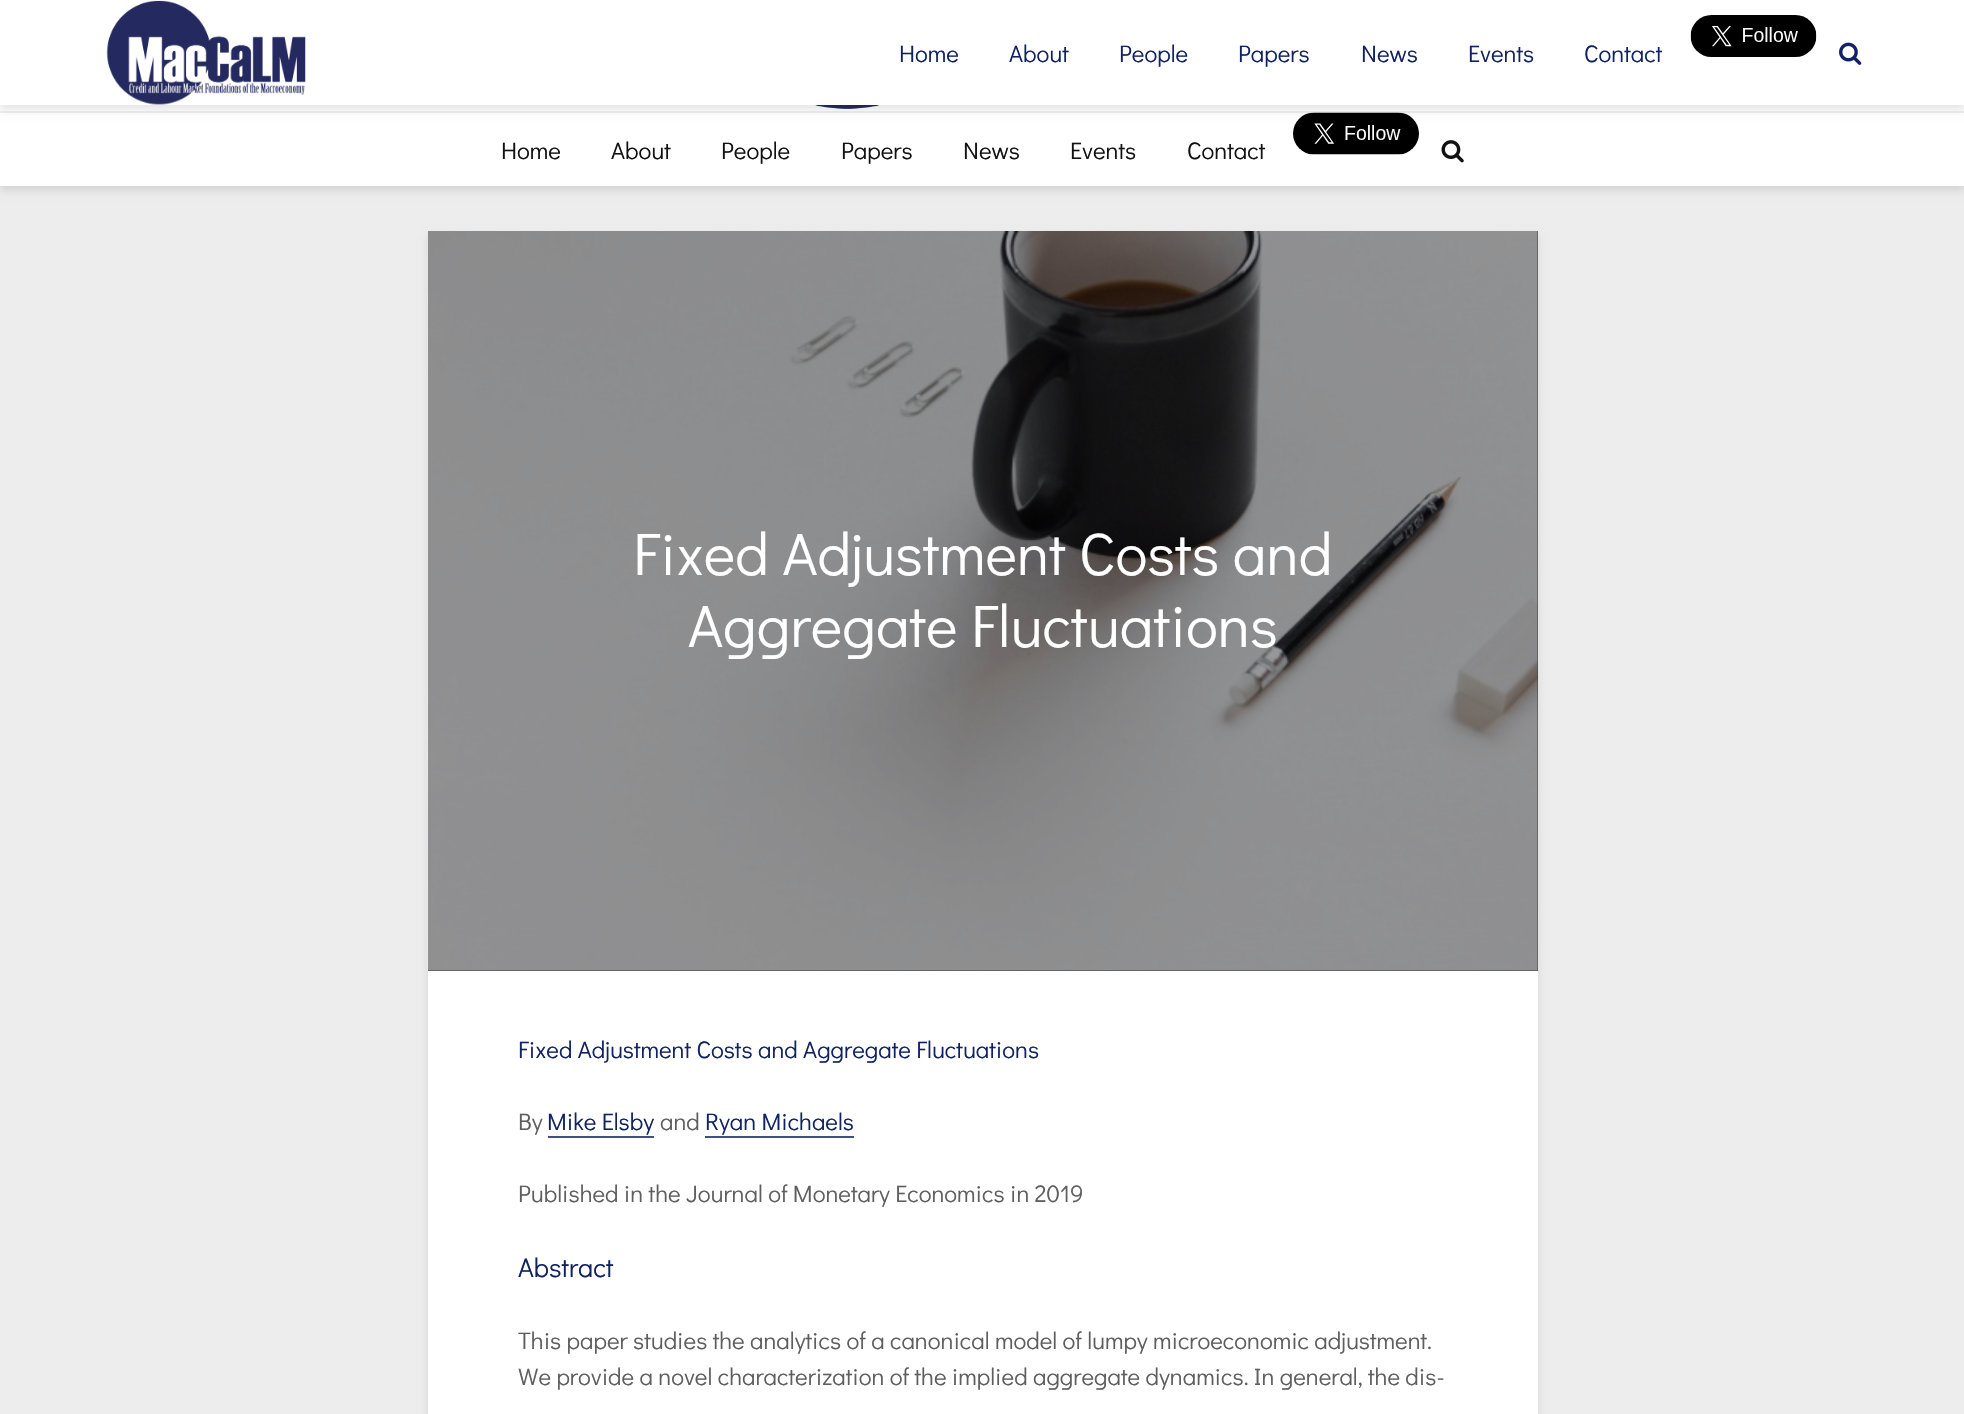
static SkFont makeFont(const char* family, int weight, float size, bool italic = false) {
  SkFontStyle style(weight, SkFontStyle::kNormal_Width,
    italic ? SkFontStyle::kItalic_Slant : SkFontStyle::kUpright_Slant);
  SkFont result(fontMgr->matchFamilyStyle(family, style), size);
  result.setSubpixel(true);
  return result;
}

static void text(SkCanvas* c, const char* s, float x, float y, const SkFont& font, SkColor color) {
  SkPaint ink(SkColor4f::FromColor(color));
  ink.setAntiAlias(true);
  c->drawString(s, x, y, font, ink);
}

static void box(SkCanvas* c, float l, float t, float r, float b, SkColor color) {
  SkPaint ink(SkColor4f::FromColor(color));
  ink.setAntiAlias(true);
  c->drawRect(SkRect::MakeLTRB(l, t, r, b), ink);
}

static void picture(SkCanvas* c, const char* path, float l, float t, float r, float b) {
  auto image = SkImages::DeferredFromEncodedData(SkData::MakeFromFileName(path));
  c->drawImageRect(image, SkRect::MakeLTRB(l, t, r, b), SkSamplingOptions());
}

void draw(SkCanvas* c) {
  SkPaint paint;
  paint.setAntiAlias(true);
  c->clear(0xffededed);
  paint.setColor(0x1a000101);
  paint.setMaskFilter(SkMaskFilter::MakeBlur(kNormal_SkBlurStyle, 4));
  c->drawRect(SkRect::MakeLTRB(0, -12, 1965, 191), paint);
  paint.setMaskFilter(nullptr);
  box(c, 0, 105, 1964, 111, 0xffffffff);
  picture(c, "img_04.png", 815, 105, 880, 109);
  box(c, 0, 113, 1964, 186, 0xffffffff);
  box(c, 0, 111, 1964, 113, 0xffeeeeee);
  picture(c, "img_05.png", 1293, 112, 1419, 155);
  paint.setMaskFilter(SkMaskFilter::MakeBlur(kNormal_SkBlurStyle, 4));
  c->drawRect(SkRect::MakeLTRB(0, 5, 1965, 110), paint);
  paint.setMaskFilter(nullptr);
  box(c, 0, 0, 1964, 105, 0xffffffff);
  picture(c, "img_01.png", 106, 0, 306, 105);
  SkFont face1 = makeFont("Didact Gothic", 400, 24);
  text(c, "Home", 899, 62, face1, 0xff102262);
  text(c, "About", 1009, 62, face1, 0xff102262);
  text(c, "People", 1119, 62, face1, 0xff102262);
  text(c, "Papers", 1238, 62, face1, 0xff102262);
  text(c, "News", 1361, 62, face1, 0xff102262);
  text(c, "Events", 1468, 62, face1, 0xff102262);
  text(c, "Contact", 1584, 62, face1, 0xff102262);
  picture(c, "img_02.png", 1690, 15, 1817, 57);
  picture(c, "img_03.png", 1839, 42, 1862, 65);
  text(c, "Home", 501, 159, face1, 0xff111111);
  text(c, "About", 611, 159, face1, 0xff111111);
  text(c, "People", 721, 159, face1, 0xff111111);
  text(c, "Papers", 841, 159, face1, 0xff111111);
  text(c, "News", 963, 159, face1, 0xff111111);
  text(c, "Events", 1070, 159, face1, 0xff111111);
  text(c, "Contact", 1187, 159, face1, 0xff111111);
  picture(c, "img_06.png", 1441, 140, 1464, 163);
  paint.setMaskFilter(SkMaskFilter::MakeBlur(kNormal_SkBlurStyle, 4));
  c->drawRect(SkRect::MakeLTRB(428, 236, 1538, 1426), paint);
  paint.setMaskFilter(nullptr);
  box(c, 428, 971, 1538, 1414, 0xffffffff);
  box(c, 428, 231, 1538, 971, 0xff666666);
  picture(c, "img_07.png", 427, 231, 1538, 971);
  box(c, 428, 231, 1538, 971, 0x66000000);
  SkFont face2 = makeFont("Didact Gothic", 400, 60);
  text(c, "Fixed Adjustment Costs and", 633, 575, face2, 0xffffffff);
  text(c, "Aggregate Fluctuations", 688, 647, face2, 0xffffffff);
  text(c, "Fixed Adjustment Costs and Aggregate Fluctuations", 518, 1058, face1, 0xff102262);
  text(c, "By", 518, 1130, face1, 0xff5e5e5e);
  text(c, "Mike Elsby", 547, 1130, face1, 0xff102262);
  box(c, 548, 1136, 654, 1138, 0xff404e81);
  text(c, "and", 660, 1130, face1, 0xff5e5e5e);
  text(c, "Ryan Michaels", 705, 1130, face1, 0xff102262);
  box(c, 705, 1136, 854, 1138, 0xff404e81);
  text(c, "Published in the Journal of Monetary Economics in 2019", 518, 1202, face1, 0xff5e5e5e);
  SkFont face3 = makeFont("Didact Gothic", 400, 27);
  text(c, "Abstract", 518, 1277, face3, 0xff102262);
  text(c, "This paper studies the analytics of a canonical model of lumpy microeconomic adjustment.", 518, 1349, face1, 0xff5e5e5e);
  text(c, "We provide a novel characterization of the implied aggregate dynamics. In general, the dis-", 518, 1385, face1, 0xff5e5e5e);
}
